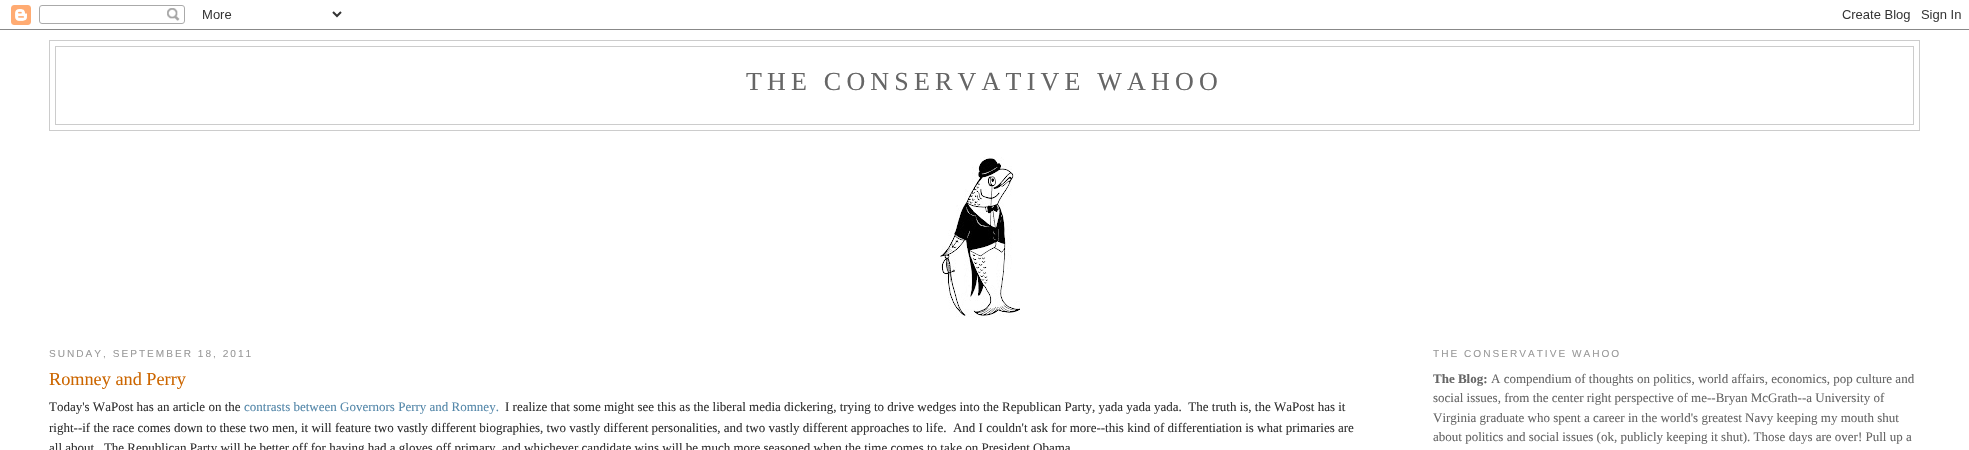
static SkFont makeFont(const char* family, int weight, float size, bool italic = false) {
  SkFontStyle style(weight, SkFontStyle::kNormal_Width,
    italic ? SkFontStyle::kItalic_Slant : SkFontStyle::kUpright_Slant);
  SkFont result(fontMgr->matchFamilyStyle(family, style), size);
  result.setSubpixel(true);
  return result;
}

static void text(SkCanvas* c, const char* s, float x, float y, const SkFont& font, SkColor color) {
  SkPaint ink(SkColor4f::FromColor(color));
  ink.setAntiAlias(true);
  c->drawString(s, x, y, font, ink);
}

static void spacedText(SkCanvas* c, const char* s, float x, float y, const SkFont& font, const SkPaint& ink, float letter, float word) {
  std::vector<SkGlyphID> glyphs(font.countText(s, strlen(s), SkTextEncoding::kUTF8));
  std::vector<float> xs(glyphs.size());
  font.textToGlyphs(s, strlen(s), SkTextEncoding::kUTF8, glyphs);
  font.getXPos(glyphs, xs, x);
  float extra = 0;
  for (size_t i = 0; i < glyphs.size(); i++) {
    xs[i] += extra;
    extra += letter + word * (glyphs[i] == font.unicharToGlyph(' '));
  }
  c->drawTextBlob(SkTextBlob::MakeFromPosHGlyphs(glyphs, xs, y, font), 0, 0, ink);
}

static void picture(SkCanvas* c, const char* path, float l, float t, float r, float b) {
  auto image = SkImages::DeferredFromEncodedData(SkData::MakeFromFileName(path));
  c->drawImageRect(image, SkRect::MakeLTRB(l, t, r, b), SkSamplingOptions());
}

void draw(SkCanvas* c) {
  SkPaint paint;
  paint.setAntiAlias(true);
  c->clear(0xffffffff);
  picture(c, "img_01.png", 0, 5, 1969, 30);
  paint.setStyle(SkPaint::kStroke_Style);
  paint.setStrokeWidth(1);
  paint.setColor(0xffcccccc);
  c->drawRect(SkRect::MakeLTRB(49.5f, 40.5f, 1919.5f, 130.5f), paint);
  c->drawRect(SkRect::MakeLTRB(55.5f, 46.5f, 1913.5f, 124.5f), paint);
  SkFont face1 = makeFont("Liberation Serif", 400, 26);
  paint.setStyle(SkPaint::kFill_Style);
  paint.setColor(0xff666666);
  spacedText(c, "THE CONSERVATIVE WAHOO", 746, 90, face1, paint, 5.2f, 0);
  picture(c, "img_02.png", 940, 157, 1020, 317);
  SkFont face2 = makeFont("Liberation Sans", 400, 10.1f);
  paint.setColor(0xff999999);
  spacedText(c, "SUNDAY, SEPTEMBER 18, 2011", 49, 357, face2, paint, 2, 0);
  SkFont face3 = makeFont("Liberation Serif", 400, 18.25f);
  text(c, "Romney and Perry", 49, 385, face3, 0xffcc6600);
  SkFont face4 = makeFont("Liberation Serif", 400, 13);
  text(c, "Today's WaPost has an article on the", 49, 411, face4, 0xff333333);
  text(c, "contrasts between Governors Perry and Romney.", 244, 411, face4, 0xff5588aa);
  text(c, "I realize that some might see this as the liberal media dickering, trying to drive wedges into the Republican Party, yada yada yada.  The truth is, the WaPost has it", 505, 411, face4, 0xff333333);
  text(c, "right--if the race comes down to these two men, it will feature two vastly different biographies, two vastly different personalities, and two vastly different approaches to life.  And I couldn't ask for more--this kind of differentiation is what primaries are", 49, 432, face4, 0xff333333);
  text(c, "all about.  The Republican Party will be better off for having had a gloves off primary, and whichever candidate wins will be much more seasoned when the time comes to take on President Obama", 49, 452, face4, 0xff333333);
  spacedText(c, "THE CONSERVATIVE WAHOO", 1433, 357, face2, paint, 2, 0);
  SkFont face5 = makeFont("Liberation Serif", 700, 13);
  text(c, "The Blog:", 1433, 383, face5, 0xff666666);
  text(c, "A compendium of thoughts on politics, world affairs, economics, pop culture and", 1491, 383, face4, 0xff666666);
  text(c, "social issues, from the center right perspective of me--Bryan McGrath--a University of", 1433, 402, face4, 0xff666666);
  text(c, "Virginia graduate who spent a career in the world's greatest Navy keeping my mouth shut", 1433, 422, face4, 0xff666666);
  text(c, "about politics and social issues (ok, publicly keeping it shut). Those days are over! Pull up a", 1433, 441, face4, 0xff666666);
}
